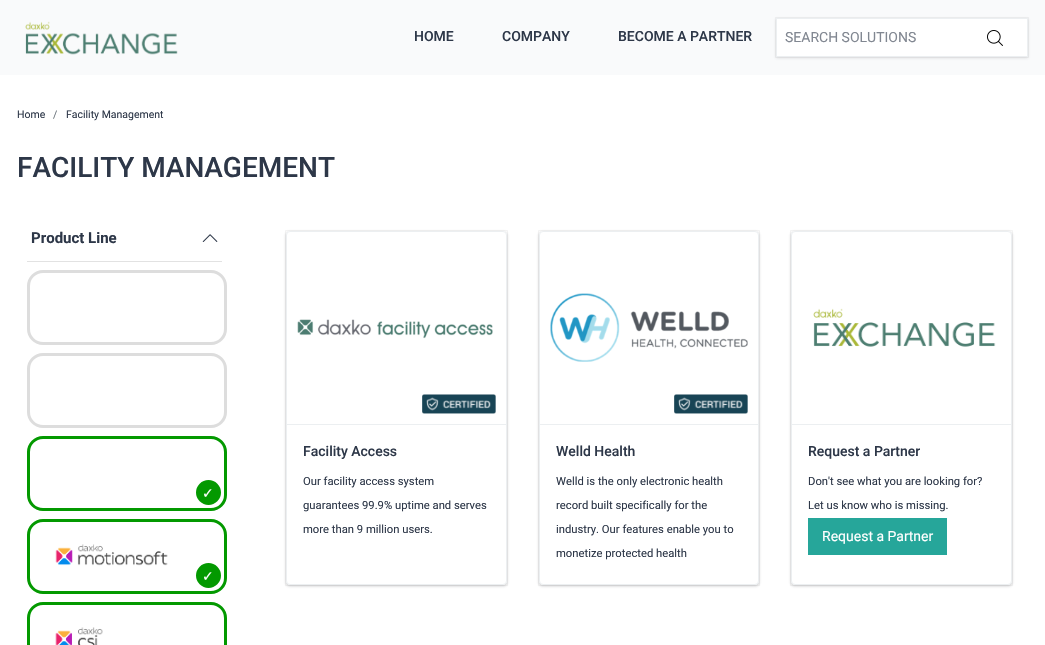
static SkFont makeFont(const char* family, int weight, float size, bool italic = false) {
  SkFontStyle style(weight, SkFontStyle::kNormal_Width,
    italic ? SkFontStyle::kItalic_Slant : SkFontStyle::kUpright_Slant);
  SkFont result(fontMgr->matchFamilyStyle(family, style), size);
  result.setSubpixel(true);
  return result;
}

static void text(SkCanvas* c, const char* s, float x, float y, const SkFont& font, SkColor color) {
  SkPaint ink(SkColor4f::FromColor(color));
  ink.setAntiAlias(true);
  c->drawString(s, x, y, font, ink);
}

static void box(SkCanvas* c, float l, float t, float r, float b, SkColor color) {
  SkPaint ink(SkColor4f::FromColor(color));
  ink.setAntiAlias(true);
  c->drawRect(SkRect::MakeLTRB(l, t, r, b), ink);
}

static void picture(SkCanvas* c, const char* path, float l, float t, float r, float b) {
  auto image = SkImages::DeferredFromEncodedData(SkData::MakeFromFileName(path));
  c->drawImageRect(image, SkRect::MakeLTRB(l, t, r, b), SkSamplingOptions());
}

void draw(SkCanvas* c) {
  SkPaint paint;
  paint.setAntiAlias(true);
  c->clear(0xffffffff);
  box(c, 0, 0, 1045, 75, 0xfff9fafb);
  picture(c, "img_01.png", 25, 21, 178, 55);
  SkFont face1 = makeFont("Roboto", 500, 14);
  text(c, "HOME", 414, 41, face1, 0xff2d3748);
  text(c, "COMPANY", 502, 41, face1, 0xff2d3748);
  text(c, "BECOME A PARTNER", 618, 41, face1, 0xff2d3748);
  paint.setColor(0x263f3f44);
  paint.setMaskFilter(SkMaskFilter::MakeBlur(kNormal_SkBlurStyle, 1.5f));
  c->drawRect(SkRect::MakeLTRB(776, 19, 1028, 58), paint);
  paint.setMaskFilter(nullptr);
  paint.setStyle(SkPaint::kStroke_Style);
  paint.setStrokeWidth(1);
  paint.setColor(0x0d3f3f44);
  c->drawRect(SkRect::MakeLTRB(775.5f, 17.5f, 1028.5f, 57.5f), paint);
  paint.setStyle(SkPaint::kFill_Style);
  paint.setColor(0xffffffff);
  c->drawRect(SkRect::MakeLTRB(776.5f, 18.5f, 1027.5f, 56.5f), paint);
  paint.setStyle(SkPaint::kStroke_Style);
  paint.setColor(0xffeceff1);
  c->drawRect(SkRect::MakeLTRB(776.5f, 18.5f, 1027.5f, 56.5f), paint);
  SkFont face2 = makeFont("Roboto", 400, 14);
  text(c, "SEARCH SOLUTIONS", 785, 42, face2, 0xff818791);
  picture(c, "img_02.png", 987, 30, 1003, 46);
  SkFont face3 = makeFont("Roboto", 400, 10.5f);
  text(c, "Home", 17, 118, face3, 0xff2d3748);
  text(c, "/", 53, 118, face3, 0xff6c757d);
  text(c, "Facility Management", 66, 118, face3, 0xff2d3748);
  SkFont face4 = makeFont("Roboto", 500, 28);
  text(c, "FACILITY MANAGEMENT", 17, 177, face4, 0xff2d3748);
  box(c, 27, 261, 222, 262, 0xffe2e2e2);
  SkFont face5 = makeFont("Roboto", 700, 15);
  text(c, "Product Line", 31, 243, face5, 0xff2d3748);
  picture(c, "img_03.png", 202, 234, 218, 242);
  paint.setStrokeWidth(3);
  paint.setColor(0xffdddddd);
  c->drawRoundRect(SkRect::MakeLTRB(28.5f, 271.5f, 225.5f, 343.5f), 14.5f, 14.5f, paint);
  c->drawRoundRect(SkRect::MakeLTRB(28.5f, 354.5f, 225.5f, 426.5f), 14.5f, 14.5f, paint);
  paint.setColor(0xff039900);
  c->drawRoundRect(SkRect::MakeLTRB(28.5f, 437.5f, 225.5f, 509.5f), 14.5f, 14.5f, paint);
  paint.setStyle(SkPaint::kFill_Style);
  c->drawCircle(208.5f, 492.5f, 11, paint);
  paint.setStyle(SkPaint::kStroke_Style);
  c->drawCircle(208.5f, 492.5f, 11, paint);
  SkFont face6 = makeFont("DejaVu Sans", 400, 14);
  text(c, "✓", 202, 498, face6, 0xffffffff);
  c->drawRoundRect(SkRect::MakeLTRB(28.5f, 520.5f, 225.5f, 592.5f), 14.5f, 14.5f, paint);
  picture(c, "img_04.png", 55, 544, 168, 566);
  paint.setStyle(SkPaint::kFill_Style);
  c->drawCircle(208.5f, 575.5f, 11, paint);
  paint.setStyle(SkPaint::kStroke_Style);
  c->drawCircle(208.5f, 575.5f, 11, paint);
  text(c, "✓", 202, 581, face6, 0xffffffff);
  c->drawRoundRect(SkRect::MakeLTRB(28.5f, 603.5f, 225.5f, 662.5f), 14.5f, 14.5f, paint);
  picture(c, "img_05.png", 55, 627, 103, 645);
  c->save();
  c->clipPath(SkPathBuilder(SkPathFillType::kEvenOdd).moveTo(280, 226).lineTo(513, 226).lineTo(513, 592).lineTo(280, 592).close().moveTo(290, 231).lineTo(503, 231).cubicTo(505, 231, 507, 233, 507, 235).lineTo(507, 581).cubicTo(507, 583, 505, 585, 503, 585).lineTo(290, 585).cubicTo(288, 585, 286, 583, 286, 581).lineTo(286, 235).cubicTo(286, 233, 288, 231, 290, 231).close().detach(), true);
  paint.setStyle(SkPaint::kFill_Style);
  paint.setColor(0x4d3f3f44);
  paint.setMaskFilter(SkMaskFilter::MakeBlur(kNormal_SkBlurStyle, 1.5f));
  c->drawRoundRect(SkRect::MakeLTRB(286, 232, 507, 586), 4, 4, paint);
  paint.setMaskFilter(nullptr);
  c->restore();
  paint.setStyle(SkPaint::kStroke_Style);
  paint.setStrokeWidth(1);
  paint.setColor(0x0d3f3f44);
  c->drawRect(SkRect::MakeLTRB(285.5f, 230.5f, 507.5f, 585.5f), paint);
  paint.setColor(0xffeceff1);
  c->drawRoundRect(SkRect::MakeLTRB(286.5f, 231.5f, 506.5f, 584.5f), 3.5f, 3.5f, paint);
  picture(c, "img_06.png", 297, 319, 493, 339);
  picture(c, "img_07.png", 422, 394, 496, 414);
  box(c, 287, 424, 506, 425, 0xffeceff1);
  text(c, "Facility Access", 303, 456, face1, 0xff2d3748);
  SkFont face7 = makeFont("Roboto", 400, 11.25f);
  text(c, "Our facility access system", 303, 485, face7, 0xff2d3748);
  text(c, "guarantees 99.9% uptime and serves", 303, 509, face7, 0xff2d3748);
  text(c, "more than 9 million users.", 303, 533, face7, 0xff2d3748);
  c->save();
  c->clipPath(SkPathBuilder(SkPathFillType::kEvenOdd).moveTo(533, 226).lineTo(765, 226).lineTo(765, 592).lineTo(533, 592).close().moveTo(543, 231).lineTo(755, 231).cubicTo(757, 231, 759, 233, 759, 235).lineTo(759, 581).cubicTo(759, 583, 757, 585, 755, 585).lineTo(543, 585).cubicTo(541, 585, 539, 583, 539, 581).lineTo(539, 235).cubicTo(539, 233, 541, 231, 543, 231).close().detach(), true);
  paint.setStyle(SkPaint::kFill_Style);
  paint.setColor(0x4d3f3f44);
  paint.setMaskFilter(SkMaskFilter::MakeBlur(kNormal_SkBlurStyle, 1.5f));
  c->drawRoundRect(SkRect::MakeLTRB(539, 232, 759, 586), 4, 4, paint);
  paint.setMaskFilter(nullptr);
  c->restore();
  paint.setStyle(SkPaint::kStroke_Style);
  paint.setColor(0x0d3f3f44);
  c->drawRect(SkRect::MakeLTRB(538.5f, 230.5f, 759.5f, 585.5f), paint);
  paint.setColor(0xffeceff1);
  c->drawRoundRect(SkRect::MakeLTRB(539.5f, 231.5f, 758.5f, 584.5f), 3.5f, 3.5f, paint);
  picture(c, "img_08.png", 550, 293, 748, 362);
  picture(c, "img_07.png", 674, 394, 748, 414);
  box(c, 540, 424, 758, 425, 0xffeceff1);
  text(c, "Welld Health", 556, 456, face1, 0xff2d3748);
  text(c, "Welld is the only electronic health", 556, 485, face7, 0xff2d3748);
  text(c, "record built specifically for the", 556, 509, face7, 0xff2d3748);
  text(c, "industry. Our features enable you to", 556, 533, face7, 0xff2d3748);
  text(c, "monetize protected health", 556, 557, face7, 0xff2d3748);
  c->save();
  c->clipPath(SkPathBuilder(SkPathFillType::kEvenOdd).moveTo(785, 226).lineTo(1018, 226).lineTo(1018, 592).lineTo(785, 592).close().moveTo(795, 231).lineTo(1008, 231).cubicTo(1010, 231, 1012, 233, 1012, 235).lineTo(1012, 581).cubicTo(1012, 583, 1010, 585, 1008, 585).lineTo(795, 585).cubicTo(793, 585, 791, 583, 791, 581).lineTo(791, 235).cubicTo(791, 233, 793, 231, 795, 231).close().detach(), true);
  paint.setStyle(SkPaint::kFill_Style);
  paint.setColor(0x4d3f3f44);
  paint.setMaskFilter(SkMaskFilter::MakeBlur(kNormal_SkBlurStyle, 1.5f));
  c->drawRoundRect(SkRect::MakeLTRB(791, 232, 1012, 586), 4, 4, paint);
  paint.setMaskFilter(nullptr);
  c->restore();
  paint.setStyle(SkPaint::kStroke_Style);
  paint.setColor(0x0d3f3f44);
  c->drawRect(SkRect::MakeLTRB(790.5f, 230.5f, 1012.5f, 585.5f), paint);
  paint.setColor(0xffeceff1);
  c->drawRoundRect(SkRect::MakeLTRB(791.5f, 231.5f, 1011.5f, 584.5f), 3.5f, 3.5f, paint);
  picture(c, "img_09.png", 813, 308, 996, 347);
  box(c, 792, 424, 1011, 425, 0xffeceff1);
  text(c, "Request a Partner", 808, 456, face1, 0xff2d3748);
  text(c, "Don't see what you are looking for?", 808, 485, face7, 0xff2d3748);
  text(c, "Let us know who is missing.", 808, 509, face7, 0xff2d3748);
  box(c, 808, 518, 947, 555, 0xff26a69a);
  text(c, "Request a Partner", 822, 541, face2, 0xffffffff);
}
